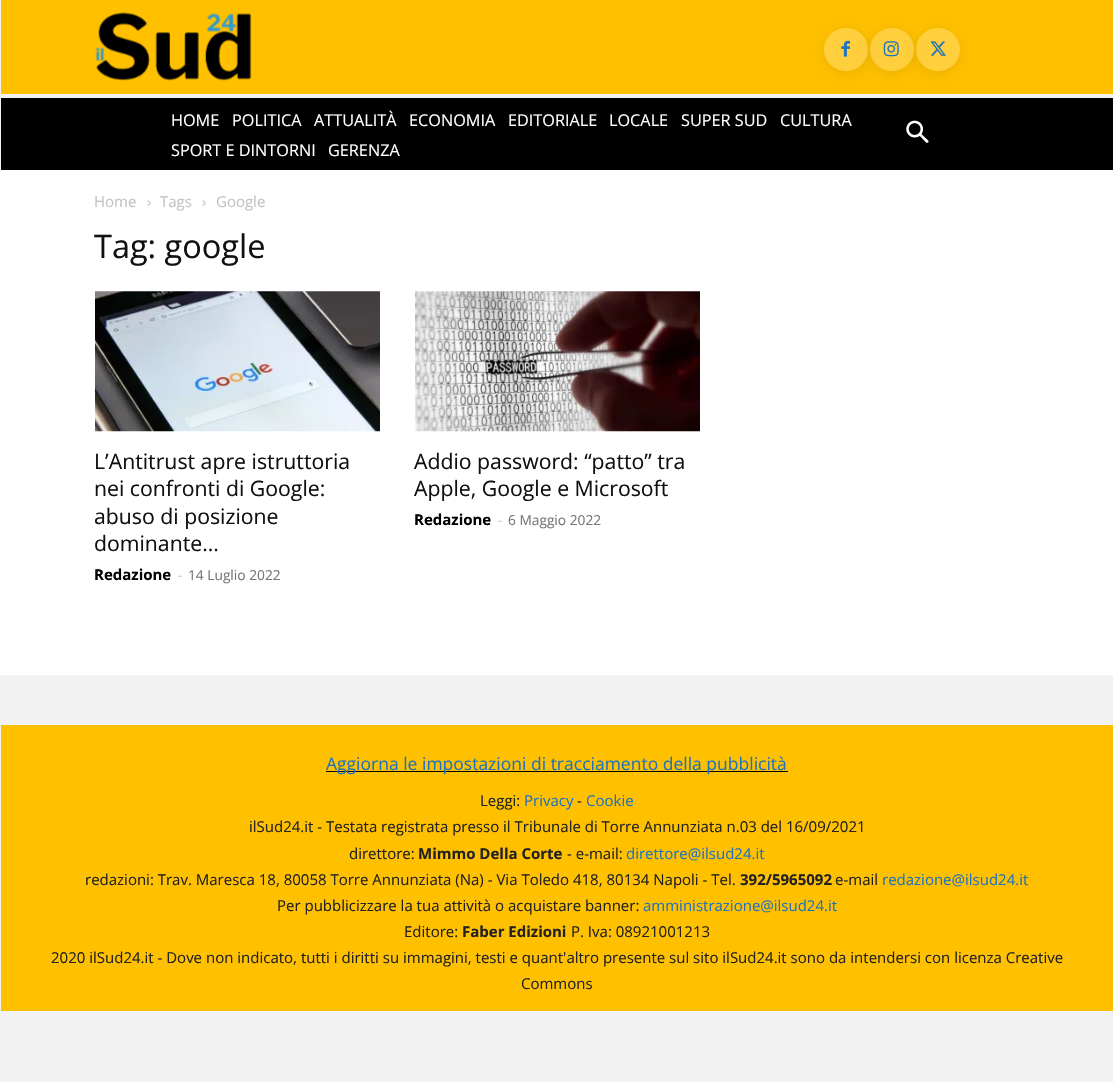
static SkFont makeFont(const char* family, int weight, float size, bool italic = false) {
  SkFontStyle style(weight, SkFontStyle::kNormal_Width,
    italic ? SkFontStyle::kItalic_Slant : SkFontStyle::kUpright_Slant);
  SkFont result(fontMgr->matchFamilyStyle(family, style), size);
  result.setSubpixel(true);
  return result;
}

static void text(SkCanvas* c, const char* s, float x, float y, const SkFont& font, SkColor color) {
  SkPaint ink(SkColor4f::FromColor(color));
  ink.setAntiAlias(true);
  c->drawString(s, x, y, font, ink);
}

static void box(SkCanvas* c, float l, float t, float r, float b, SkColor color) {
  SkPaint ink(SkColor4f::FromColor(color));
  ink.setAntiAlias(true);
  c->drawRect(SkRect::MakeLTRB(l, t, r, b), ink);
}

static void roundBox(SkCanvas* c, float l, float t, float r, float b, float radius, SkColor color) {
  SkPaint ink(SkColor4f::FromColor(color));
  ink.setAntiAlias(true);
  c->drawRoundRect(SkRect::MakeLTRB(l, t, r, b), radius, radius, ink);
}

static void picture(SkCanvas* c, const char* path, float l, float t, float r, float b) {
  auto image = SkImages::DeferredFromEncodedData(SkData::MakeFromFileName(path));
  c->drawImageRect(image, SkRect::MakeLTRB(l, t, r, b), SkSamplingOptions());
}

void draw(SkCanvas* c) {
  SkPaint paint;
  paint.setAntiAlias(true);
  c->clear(0xfff2f2f2);
  box(c, 1, 0, 1113, 94, 0xffffc000);
  picture(c, "img_01.png", 95, 12, 252, 81);
  c->save();
  c->clipPath(SkPathBuilder(SkPathFillType::kEvenOdd).moveTo(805, 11).lineTo(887, 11).lineTo(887, 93).lineTo(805, 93).close().moveTo(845.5f, 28).lineTo(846.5f, 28).cubicTo(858.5f, 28, 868, 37.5f, 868, 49.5f).cubicTo(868, 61.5f, 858.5f, 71, 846.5f, 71).lineTo(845.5f, 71).cubicTo(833.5f, 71, 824, 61.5f, 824, 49.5f).cubicTo(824, 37.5f, 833.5f, 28, 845.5f, 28).close().detach(), true);
  paint.setColor(0x14000000);
  paint.setMaskFilter(SkMaskFilter::MakeBlur(kNormal_SkBlurStyle, 6));
  c->drawRoundRect(SkRect::MakeLTRB(824, 30, 868, 74), 22, 22, paint);
  paint.setMaskFilter(nullptr);
  c->restore();
  roundBox(c, 824, 28, 868, 71, 21.5f, 0x3dffffff);
  picture(c, "img_02.png", 841, 40, 850, 57);
  c->save();
  c->clipPath(SkPathBuilder(SkPathFillType::kEvenOdd).moveTo(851, 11).lineTo(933, 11).lineTo(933, 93).lineTo(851, 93).close().moveTo(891.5f, 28).lineTo(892.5f, 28).cubicTo(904.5f, 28, 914, 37.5f, 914, 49.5f).cubicTo(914, 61.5f, 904.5f, 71, 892.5f, 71).lineTo(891.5f, 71).cubicTo(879.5f, 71, 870, 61.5f, 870, 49.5f).cubicTo(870, 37.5f, 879.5f, 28, 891.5f, 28).close().detach(), true);
  paint.setMaskFilter(SkMaskFilter::MakeBlur(kNormal_SkBlurStyle, 6));
  c->drawRoundRect(SkRect::MakeLTRB(870, 30, 914, 74), 22, 22, paint);
  paint.setMaskFilter(nullptr);
  c->restore();
  roundBox(c, 870, 28, 914, 71, 21.5f, 0x3dffffff);
  picture(c, "img_03.png", 883, 41, 899, 57);
  c->save();
  c->clipPath(SkPathBuilder(SkPathFillType::kEvenOdd).moveTo(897, 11).lineTo(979, 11).lineTo(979, 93).lineTo(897, 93).close().moveTo(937.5f, 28).lineTo(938.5f, 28).cubicTo(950.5f, 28, 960, 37.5f, 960, 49.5f).cubicTo(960, 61.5f, 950.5f, 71, 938.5f, 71).lineTo(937.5f, 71).cubicTo(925.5f, 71, 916, 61.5f, 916, 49.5f).cubicTo(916, 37.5f, 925.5f, 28, 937.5f, 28).close().detach(), true);
  paint.setMaskFilter(SkMaskFilter::MakeBlur(kNormal_SkBlurStyle, 6));
  c->drawRoundRect(SkRect::MakeLTRB(916, 30, 960, 74), 22, 22, paint);
  paint.setMaskFilter(nullptr);
  c->restore();
  roundBox(c, 916, 28, 960, 71, 21.5f, 0x3dffffff);
  picture(c, "img_04.png", 930, 41, 946, 56);
  box(c, 1, 98, 1113, 170, 0xff000000);
  SkFont face1 = makeFont("Open Sans", 400, 16.25f);
  text(c, "HOME", 171, 126, face1, 0xffffffff);
  text(c, "POLITICA", 232, 126, face1, 0xffffffff);
  text(c, "ATTUALITÀ", 314, 126, face1, 0xffffffff);
  text(c, "ECONOMIA", 409, 126, face1, 0xffffffff);
  text(c, "EDITORIALE", 508, 126, face1, 0xffffffff);
  text(c, "LOCALE", 609, 126, face1, 0xffffffff);
  text(c, "SUPER SUD", 681, 126, face1, 0xffffffff);
  text(c, "CULTURA", 780, 126, face1, 0xffffffff);
  text(c, "SPORT E DINTORNI", 171, 156, face1, 0xffffffff);
  text(c, "GERENZA", 328, 156, face1, 0xffffffff);
  picture(c, "img_05.png", 906, 120, 929, 143);
  box(c, 0, 170, 1113, 675, 0xffffffff);
  SkFont face2 = makeFont("Open Sans", 400, 15);
  text(c, "Home", 94, 207, face2, 0xffc3c3c3);
  picture(c, "img_06.png", 147, 200, 151, 206);
  text(c, "Tags", 160, 207, face2, 0xffc3c3c3);
  picture(c, "img_06.png", 202, 200, 206, 206);
  text(c, "Google", 216, 207, face2, 0xffc3c3c3);
  SkFont face3 = makeFont("Open Sans", 400, 32.5f);
  text(c, "Tag: google", 94, 258, face3, 0xff111111);
  picture(c, "img_07.png", 95, 291, 380, 432);
  SkFont face4 = makeFont("Open Sans", 400, 21.25f);
  text(c, "L’Antitrust apre istruttoria", 94, 469, face4, 0xff111111);
  text(c, "nei confronti di Google:", 94, 496, face4, 0xff111111);
  text(c, "abuso di posizione", 94, 524, face4, 0xff111111);
  text(c, "dominante...", 94, 551, face4, 0xff111111);
  SkFont face5 = makeFont("Open Sans", 700, 15);
  text(c, "Redazione", 94, 580, face5, 0xff000000);
  SkFont face6 = makeFont("Open Sans", 400, 13.75f);
  text(c, "-", 178, 580, face6, 0xffcccccc);
  text(c, "14 Luglio 2022", 188, 580, face6, 0xff767676);
  picture(c, "img_08.png", 415, 291, 700, 432);
  text(c, "Addio password: “patto” tra", 414, 469, face4, 0xff111111);
  text(c, "Apple, Google e Microsoft", 414, 496, face4, 0xff111111);
  text(c, "Redazione", 414, 525, face5, 0xff000000);
  text(c, "-", 498, 525, face6, 0xffcccccc);
  text(c, "6 Maggio 2022", 508, 525, face6, 0xff767676);
  box(c, 1, 725, 1113, 1011, 0xffffc000);
  box(c, 326, 771, 788, 772, 0xff000000);
  SkFont face7 = makeFont("Open Sans", 400, 17.5f);
  text(c, "Aggiorna le impostazioni di tracciamento della pubblicità", 326, 770, face7, 0xff1e73be);
  text(c, "Leggi:", 480, 806, face2, 0xff222222);
  text(c, "Privacy", 524, 806, face2, 0xff1e73be);
  text(c, "-", 577, 806, face2, 0xff222222);
  text(c, "Cookie", 586, 806, face2, 0xff1e73be);
  text(c, "ilSud24.it - Testata registrata presso il Tribunale di Torre Annunziata n.03 del 16/09/2021", 249, 832, face2, 0xff222222);
  text(c, "direttore:", 349, 859, face2, 0xff222222);
  text(c, "Mimmo Della Corte", 418, 859, face5, 0xff222222);
  text(c, "- e-mail:", 567, 859, face2, 0xff222222);
  text(c, "direttore@ilsud24.it", 626, 859, face2, 0xff1e73be);
  text(c, "redazioni: Trav. Maresca 18, 80058 Torre Annunziata (Na) - Via Toledo 418, 80134 Napoli - Tel.", 85, 885, face2, 0xff222222);
  text(c, "392/5965092", 740, 885, face5, 0xff222222);
  text(c, "e-mail", 835, 885, face2, 0xff222222);
  text(c, "redazione@ilsud24.it", 882, 885, face2, 0xff1e73be);
  text(c, "Per pubblicizzare la tua attività o acquistare banner:", 277, 911, face2, 0xff222222);
  text(c, "amministrazione@ilsud24.it", 643, 911, face2, 0xff1e73be);
  text(c, "Editore:", 404, 937, face2, 0xff222222);
  text(c, "Faber Edizioni", 462, 937, face5, 0xff222222);
  text(c, "P. Iva: 08921001213", 571, 937, face2, 0xff222222);
  text(c, "2020 ilSud24.it - Dove non indicato, tutti i diritti su immagini, testi e quant'altro presente sul sito ilSud24.it sono da intendersi con licenza Creative", 51, 963, face2, 0xff222222);
  text(c, "Commons", 521, 989, face2, 0xff222222);
}
